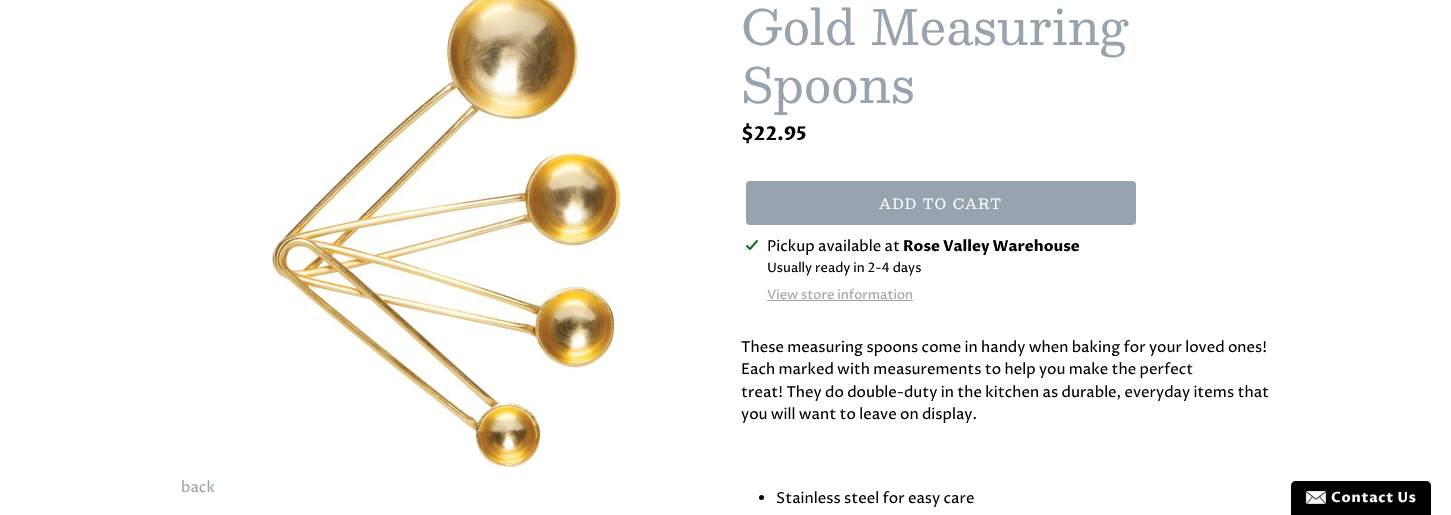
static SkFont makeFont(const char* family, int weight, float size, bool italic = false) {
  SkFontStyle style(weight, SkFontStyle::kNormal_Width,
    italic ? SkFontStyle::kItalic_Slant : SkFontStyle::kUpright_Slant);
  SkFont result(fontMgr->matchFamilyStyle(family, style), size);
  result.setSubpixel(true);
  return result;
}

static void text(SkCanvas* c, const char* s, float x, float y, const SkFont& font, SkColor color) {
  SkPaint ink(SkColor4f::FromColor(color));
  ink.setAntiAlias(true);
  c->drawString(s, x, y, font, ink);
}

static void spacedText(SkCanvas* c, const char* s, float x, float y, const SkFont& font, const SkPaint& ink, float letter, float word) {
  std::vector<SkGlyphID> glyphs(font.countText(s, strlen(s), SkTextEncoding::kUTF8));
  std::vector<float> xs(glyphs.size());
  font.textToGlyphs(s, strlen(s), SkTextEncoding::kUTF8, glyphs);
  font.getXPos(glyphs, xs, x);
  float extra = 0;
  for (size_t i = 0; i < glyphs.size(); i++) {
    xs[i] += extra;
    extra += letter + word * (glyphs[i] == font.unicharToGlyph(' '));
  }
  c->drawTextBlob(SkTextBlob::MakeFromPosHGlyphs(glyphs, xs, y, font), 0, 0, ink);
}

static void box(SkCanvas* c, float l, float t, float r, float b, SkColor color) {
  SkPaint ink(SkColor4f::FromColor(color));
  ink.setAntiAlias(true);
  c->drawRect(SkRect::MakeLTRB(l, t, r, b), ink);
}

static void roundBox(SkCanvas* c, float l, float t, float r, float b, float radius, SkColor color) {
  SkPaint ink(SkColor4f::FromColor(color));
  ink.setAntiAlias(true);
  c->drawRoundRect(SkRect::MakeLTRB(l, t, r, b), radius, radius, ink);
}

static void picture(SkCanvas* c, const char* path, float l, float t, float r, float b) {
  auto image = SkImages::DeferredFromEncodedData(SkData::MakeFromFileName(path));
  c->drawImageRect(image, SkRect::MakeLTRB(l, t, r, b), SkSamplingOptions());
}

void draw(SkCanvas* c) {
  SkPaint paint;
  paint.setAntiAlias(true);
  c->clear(0xffffffff);
  picture(c, "img_01.png", 268, 0, 621, 472);
  SkFont face1 = makeFont("Proza Libre", 400, 15);
  text(c, "back", 181, 492, face1, 0xff97a3ae);
  SkFont face2 = makeFont("Besley", 400, 48);
  text(c, "Gold Measuring", 741, 45, face2, 0xff97a3ae);
  text(c, "Spoons", 741, 103, face2, 0xff97a3ae);
  SkFont face3 = makeFont("Proza Libre", 700, 19);
  text(c, "$22.95", 741, 140, face3, 0xff000000);
  roundBox(c, 746, 181, 1136, 225, 4, 0xff97a3ae);
  SkFont face4 = makeFont("Besley", 400, 14);
  paint.setColor(0xffffffff);
  spacedText(c, "ADD TO CART", 879, 209, face4, paint, 1.1f, 0);
  picture(c, "img_02.png", 746, 240, 758, 250);
  text(c, "Pickup available at", 767, 251, face1, 0xff000000);
  SkFont face5 = makeFont("Proza Libre", 700, 15);
  text(c, "Rose Valley Warehouse", 903, 251, face5, 0xff000000);
  SkFont face6 = makeFont("Proza Libre", 400, 13);
  text(c, "Usually ready in 2-4 days", 767, 272, face6, 0xff000000);
  text(c, "View store information", 767, 299, face6, 0xff97a3ae);
  box(c, 767, 300, 913, 301, 0xff97a3ae);
  text(c, "These measuring spoons come in handy when baking for your loved ones!", 741, 352, face1, 0xff000000);
  text(c, "Each marked with measurements to help you make the perfect", 741, 374, face1, 0xff000000);
  text(c, "treat! They do double-duty in the kitchen as durable, everyday items that", 741, 397, face1, 0xff000000);
  text(c, "you will want to leave on display.", 741, 419, face1, 0xff000000);
  paint.setColor(0xff000000);
  c->drawCircle(761.5f, 497.5f, 2.5f, paint);
  text(c, "Stainless steel for easy care", 776, 503, face1, 0xff000000);
  c->drawPath(SkPathBuilder().moveTo(1296, 481).lineTo(1426, 481).cubicTo(1429, 481, 1431, 483, 1431, 486).lineTo(1431, 515).lineTo(1291, 515).lineTo(1291, 486).cubicTo(1291, 483, 1293, 481, 1296, 481).close().detach(), paint);
  picture(c, "img_03.png", 1305, 491, 1326, 504);
  SkFont face7 = makeFont("Proza Libre", 700, 14);
  paint.setColor(0xffffffff);
  spacedText(c, "Contact Us", 1331, 502, face7, paint, 0.75f, 0);
}
